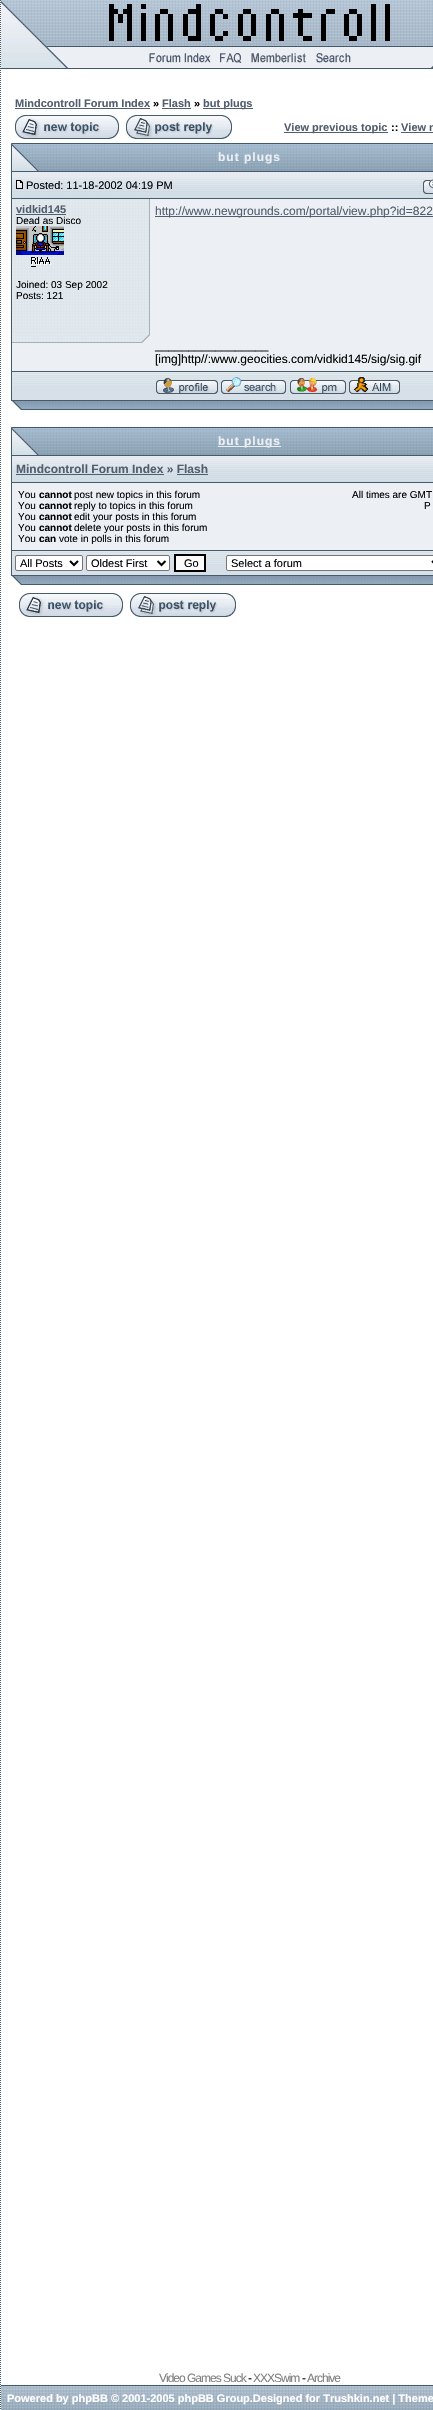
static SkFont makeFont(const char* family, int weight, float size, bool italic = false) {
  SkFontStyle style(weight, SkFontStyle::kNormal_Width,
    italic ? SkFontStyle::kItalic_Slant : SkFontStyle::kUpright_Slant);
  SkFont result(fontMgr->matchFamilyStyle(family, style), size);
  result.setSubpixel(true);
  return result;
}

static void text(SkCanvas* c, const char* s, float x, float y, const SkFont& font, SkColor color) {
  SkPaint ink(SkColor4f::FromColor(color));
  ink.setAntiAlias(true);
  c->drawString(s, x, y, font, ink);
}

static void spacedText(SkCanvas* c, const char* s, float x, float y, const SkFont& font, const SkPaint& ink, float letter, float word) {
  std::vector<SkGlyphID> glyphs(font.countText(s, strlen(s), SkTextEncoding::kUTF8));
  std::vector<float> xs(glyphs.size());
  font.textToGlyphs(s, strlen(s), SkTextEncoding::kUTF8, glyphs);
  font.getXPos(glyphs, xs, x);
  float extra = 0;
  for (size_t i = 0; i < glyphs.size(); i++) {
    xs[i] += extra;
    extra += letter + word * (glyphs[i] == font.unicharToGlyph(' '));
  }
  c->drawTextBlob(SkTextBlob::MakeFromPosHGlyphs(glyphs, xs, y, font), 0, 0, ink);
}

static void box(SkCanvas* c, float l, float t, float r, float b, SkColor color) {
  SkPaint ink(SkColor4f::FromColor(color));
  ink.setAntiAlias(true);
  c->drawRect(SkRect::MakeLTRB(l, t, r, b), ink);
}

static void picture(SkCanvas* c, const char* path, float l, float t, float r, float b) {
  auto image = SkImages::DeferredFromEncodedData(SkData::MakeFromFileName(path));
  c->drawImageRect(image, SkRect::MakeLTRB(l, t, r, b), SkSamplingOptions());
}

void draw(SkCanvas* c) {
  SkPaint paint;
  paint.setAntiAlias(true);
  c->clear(0xffffffff);
  paint.setStyle(SkPaint::kStroke_Style);
  paint.setStrokeWidth(1);
  paint.setColor(0xff465b6c);
  paint.setPathEffect(SkDashPathEffect::Make({{1, 1}}, 0));
  c->drawPath(SkPathBuilder().moveTo(0.5f, 0).lineTo(0.5f, 2410).detach(), paint);
  paint.setPathEffect(nullptr);
  picture(c, "img_01.png", 1, 0, 70, 69);
  picture(c, "img_02.png", 1, 1, 68, 68);
  picture(c, "img_03.png", 70, 0, 429, 69);
  picture(c, "img_04.png", 109, 4, 390, 41);
  picture(c, "img_05.png", 149, 53, 211, 63);
  picture(c, "img_06.png", 220, 53, 242, 63);
  picture(c, "img_07.png", 251, 53, 306, 63);
  picture(c, "img_08.png", 316, 53, 351, 63);
  picture(c, "img_09.png", 429, 0, 433, 69);
  picture(c, "img_10.png", 431, 66, 433, 68);
  SkFont face1 = makeFont("Liberation Sans", 700, 11);
  text(c, "Mindcontroll Forum Index", 15, 107, face1, 0xff525e6e);
  box(c, 15, 108, 150, 109, 0xff525e6e);
  text(c, "»", 153, 107, face1, 0xff000000);
  text(c, "Flash", 162, 107, face1, 0xff525e6e);
  box(c, 162, 108, 191, 109, 0xff525e6e);
  text(c, "»", 194, 107, face1, 0xff000000);
  box(c, 203, 108, 253, 109, 0xff525e6e);
  text(c, "but plugs", 203, 107, face1, 0xff525e6e);
  picture(c, "img_11.png", 15, 115, 119, 139);
  picture(c, "img_12.png", 126, 115, 232, 139);
  box(c, 284, 132, 388, 133, 0xff525e6e);
  text(c, "View previous topic", 284, 131, face1, 0xff525e6e);
  text(c, "::", 391, 131, face1, 0xff000000);
  text(c, "View n", 401, 131, face1, 0xff525e6e);
  box(c, 401, 132, 433, 133, 0xff525e6e);
  picture(c, "img_13.png", 11, 143, 61, 171);
  picture(c, "img_14.png", 61, 143, 433, 171);
  SkFont face2 = makeFont("Liberation Sans", 700, 12);
  paint.setStyle(SkPaint::kFill_Style);
  paint.setColor(0xffecf0f4);
  spacedText(c, "but plugs", 218, 161, face2, paint, 1, 0);
  box(c, 11, 171, 433, 401, 0xff465b6c);
  picture(c, "img_15.png", 12, 172, 433, 198);
  picture(c, "img_16.png", 16, 180, 23, 189);
  SkFont face3 = makeFont("Liberation Sans", 400, 11);
  text(c, "Posted: 11-18-2002 04:19 PM", 26, 189, face3, 0xff000000);
  picture(c, "img_17.png", 423, 179, 433, 194);
  box(c, 12, 199, 433, 371, 0xffecf0f4);
  picture(c, "img_18.png", 12, 199, 140, 333);
  text(c, "vidkid145", 16, 213, face1, 0xff525e6e);
  box(c, 16, 214, 66, 215, 0xff525e6e);
  SkFont face4 = makeFont("Liberation Sans", 400, 10);
  text(c, "Dead as Disco", 16, 224, face4, 0xff000000);
  picture(c, "img_19.png", 16, 226, 64, 267);
  text(c, "Joined: 03 Sep 2002", 16, 288, face4, 0xff000000);
  text(c, "Posts: 121", 16, 299, face4, 0xff000000);
  picture(c, "img_20.png", 140, 199, 150, 333);
  picture(c, "img_21.png", 12, 333, 140, 343);
  picture(c, "img_22.png", 140, 333, 150, 343);
  box(c, 155, 216, 433, 217, 0xff525e6e);
  SkFont face5 = makeFont("Liberation Sans", 400, 12);
  text(c, "http://www.newgrounds.com/portal/view.php?id=822", 155, 215, face5, 0xff525e6e);
  text(c, "_________________", 155, 349, face5, 0xff000000);
  text(c, "[img]http//:www.geocities.com/vidkid145/sig/sig.gif", 155, 363, face5, 0xff000000);
  box(c, 12, 385, 433, 400, 0xffd7e0e9);
  picture(c, "img_23.png", 12, 372, 433, 385);
  picture(c, "img_24.png", 156, 378, 218, 394);
  picture(c, "img_25.png", 221, 377, 286, 394);
  picture(c, "img_26.png", 290, 378, 346, 394);
  picture(c, "img_27.png", 349, 377, 400, 394);
  picture(c, "img_28.png", 12, 401, 23, 410);
  picture(c, "img_29.png", 23, 401, 433, 410);
  picture(c, "img_13.png", 11, 427, 61, 455);
  picture(c, "img_14.png", 61, 427, 433, 455);
  box(c, 218, 446, 281, 447, 0xffecf0f4);
  spacedText(c, "but plugs", 218, 445, face2, paint, 1, 0);
  box(c, 11, 455, 433, 576, 0xff465b6c);
  picture(c, "img_15.png", 12, 456, 433, 482);
  text(c, "Mindcontroll Forum Index » Flash", 16, 473, face2, 0xff525e6e);
  box(c, 16, 474, 164, 475, 0xff525e6e);
  box(c, 177, 474, 208, 475, 0xff525e6e);
  box(c, 12, 483, 433, 550, 0xffecf0f4);
  text(c, "You", 18, 498, face4, 0xff000000);
  SkFont face6 = makeFont("Liberation Sans", 700, 10);
  text(c, "cannot", 39, 498, face6, 0xff000000);
  text(c, "post new topics in this forum", 74, 498, face4, 0xff000000);
  text(c, "You", 18, 509, face4, 0xff000000);
  text(c, "cannot", 39, 509, face6, 0xff000000);
  text(c, "reply to topics in this forum", 74, 509, face4, 0xff000000);
  text(c, "You", 18, 520, face4, 0xff000000);
  text(c, "cannot", 39, 520, face6, 0xff000000);
  text(c, "edit your posts in this forum", 74, 520, face4, 0xff000000);
  text(c, "You", 18, 531, face4, 0xff000000);
  text(c, "cannot", 39, 531, face6, 0xff000000);
  text(c, "delete your posts in this forum", 74, 531, face4, 0xff000000);
  text(c, "You", 18, 542, face4, 0xff000000);
  text(c, "can", 39, 542, face6, 0xff000000);
  text(c, "vote in polls in this forum", 59, 542, face4, 0xff000000);
  text(c, "All times are GMT", 352, 498, face4, 0xff000000);
  text(c, "P", 424, 509, face4, 0xff000000);
  box(c, 12, 564, 433, 575, 0xffd7e0e9);
  picture(c, "img_23.png", 12, 551, 433, 564);
  paint.setColor(0xffffffff);
  c->drawRoundRect(SkRect::MakeLTRB(15.5f, 555.5f, 82.5f, 570.5f), 1.5f, 1.5f, paint);
  paint.setStyle(SkPaint::kStroke_Style);
  paint.setColor(0xff767676);
  c->drawRoundRect(SkRect::MakeLTRB(15.5f, 555.5f, 82.5f, 570.5f), 1.5f, 1.5f, paint);
  paint.setStrokeWidth(2);
  paint.setColor(0xff000000);
  c->drawPath(SkPathBuilder().moveTo(70, 561).lineTo(74, 565).lineTo(78, 561).detach(), paint);
  text(c, "All Posts", 20, 567, face3, 0xff000000);
  paint.setStyle(SkPaint::kFill_Style);
  paint.setColor(0xffffffff);
  c->drawRoundRect(SkRect::MakeLTRB(86.5f, 555.5f, 169.5f, 570.5f), 1.5f, 1.5f, paint);
  paint.setStyle(SkPaint::kStroke_Style);
  paint.setStrokeWidth(1);
  paint.setColor(0xff767676);
  c->drawRoundRect(SkRect::MakeLTRB(86.5f, 555.5f, 169.5f, 570.5f), 1.5f, 1.5f, paint);
  paint.setStrokeWidth(2);
  paint.setColor(0xff000000);
  c->drawPath(SkPathBuilder().moveTo(157.5f, 561).lineTo(161.5f, 565).lineTo(165.5f, 561).detach(), paint);
  text(c, "Oldest First", 91, 567, face3, 0xff000000);
  paint.setStyle(SkPaint::kFill_Style);
  paint.setColor(0xfffafafa);
  c->drawRect(SkRect::MakeLTRB(175, 555, 205, 571), paint);
  paint.setStyle(SkPaint::kStroke_Style);
  paint.setColor(0xff000000);
  c->drawRect(SkRect::MakeLTRB(175, 555, 205, 571), paint);
  text(c, "Go", 184, 567, face3, 0xff000000);
  paint.setStyle(SkPaint::kFill_Style);
  paint.setColor(0xffffffff);
  c->drawRoundRect(SkRect::MakeLTRB(226.5f, 555.5f, 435.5f, 570.5f), 1.5f, 1.5f, paint);
  paint.setStyle(SkPaint::kStroke_Style);
  paint.setStrokeWidth(1);
  paint.setColor(0xff767676);
  c->drawRoundRect(SkRect::MakeLTRB(226.5f, 555.5f, 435.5f, 570.5f), 1.5f, 1.5f, paint);
  paint.setStrokeWidth(2);
  paint.setColor(0xff000000);
  c->drawPath(SkPathBuilder().moveTo(432, 561).lineTo(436, 565).lineTo(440, 561).detach(), paint);
  text(c, "Select a forum", 231, 567, face3, 0xff000000);
  picture(c, "img_28.png", 12, 576, 23, 585);
  picture(c, "img_29.png", 23, 576, 433, 585);
  picture(c, "img_11.png", 19, 593, 123, 617);
  picture(c, "img_12.png", 130, 593, 236, 617);
  paint.setStyle(SkPaint::kFill_Style);
  paint.setColor(0xff808080);
  spacedText(c, "Video Games Suck", 159, 2382, face5, paint, -1, 0);
  paint.setColor(0xff000000);
  spacedText(c, "-", 248, 2382, face5, paint, -1, 0);
  paint.setColor(0xff808080);
  spacedText(c, "XXXSwim", 253, 2382, face5, paint, -1, 0);
  paint.setColor(0xff000000);
  spacedText(c, "-", 302, 2382, face5, paint, -1, 0);
  paint.setColor(0xff808080);
  spacedText(c, "Archive", 307, 2382, face5, paint, -1, 0);
  picture(c, "img_30.png", 1, 2385, 433, 2410);
  text(c, "Powered by phpBB © 2001-2005 phpBB Group.Designed for Trushkin.net | Theme", 7, 2402, face1, 0xffffffff);
}
